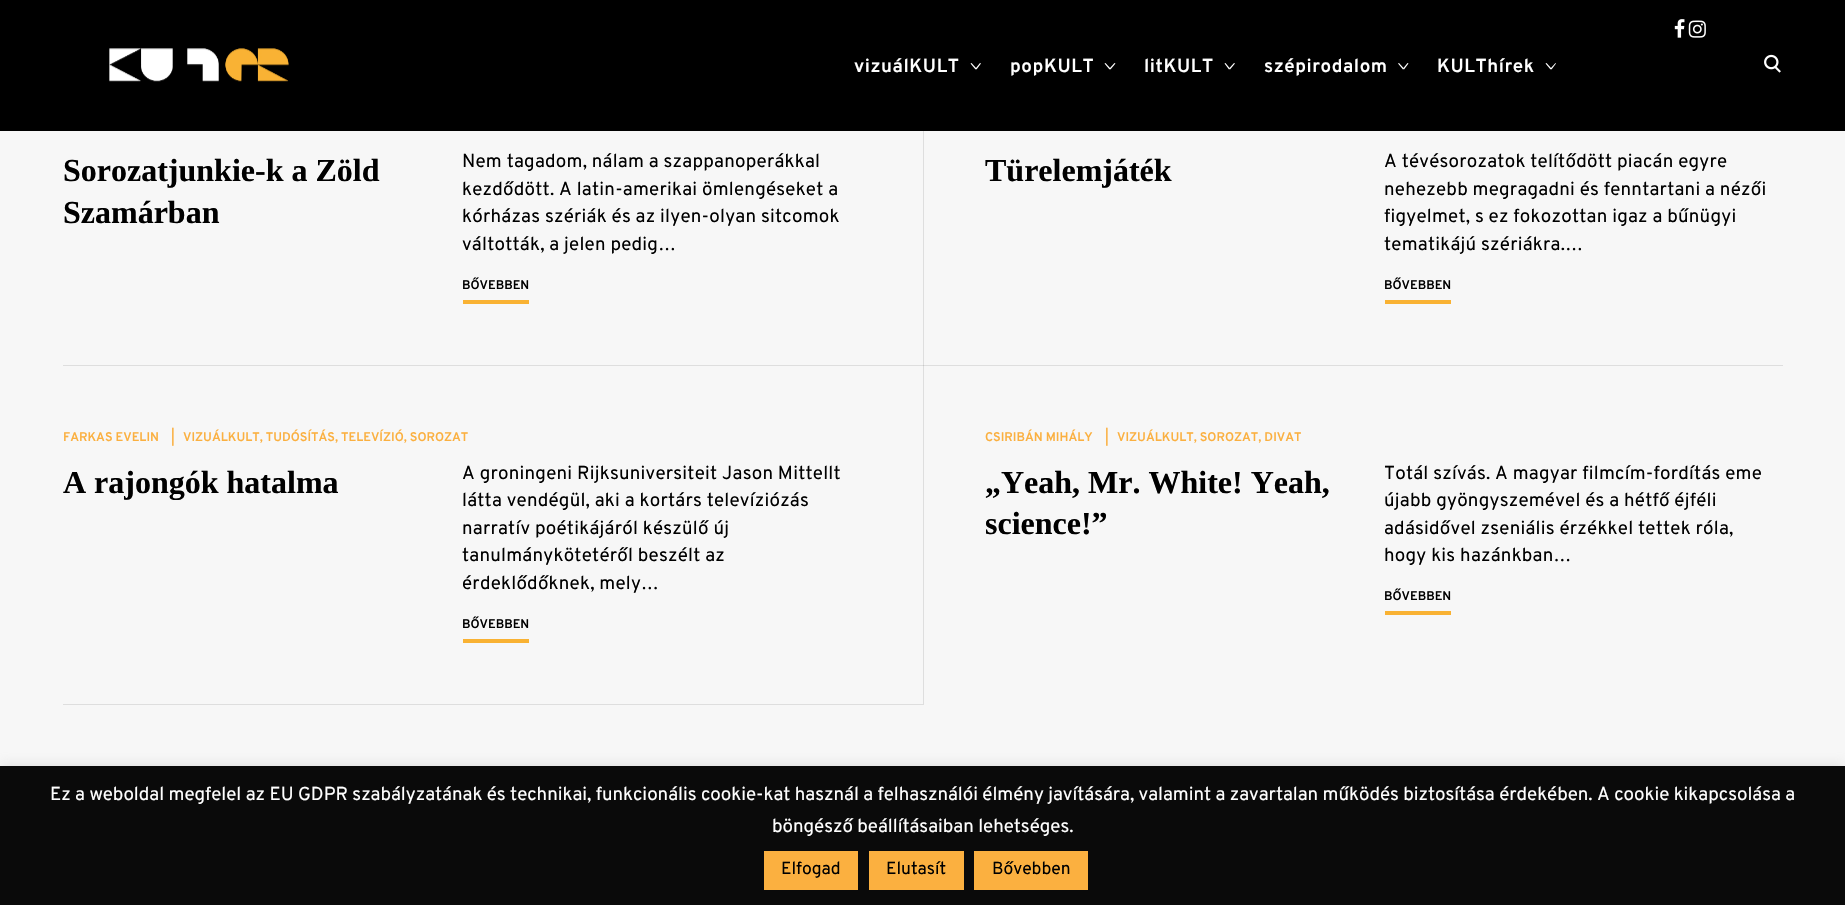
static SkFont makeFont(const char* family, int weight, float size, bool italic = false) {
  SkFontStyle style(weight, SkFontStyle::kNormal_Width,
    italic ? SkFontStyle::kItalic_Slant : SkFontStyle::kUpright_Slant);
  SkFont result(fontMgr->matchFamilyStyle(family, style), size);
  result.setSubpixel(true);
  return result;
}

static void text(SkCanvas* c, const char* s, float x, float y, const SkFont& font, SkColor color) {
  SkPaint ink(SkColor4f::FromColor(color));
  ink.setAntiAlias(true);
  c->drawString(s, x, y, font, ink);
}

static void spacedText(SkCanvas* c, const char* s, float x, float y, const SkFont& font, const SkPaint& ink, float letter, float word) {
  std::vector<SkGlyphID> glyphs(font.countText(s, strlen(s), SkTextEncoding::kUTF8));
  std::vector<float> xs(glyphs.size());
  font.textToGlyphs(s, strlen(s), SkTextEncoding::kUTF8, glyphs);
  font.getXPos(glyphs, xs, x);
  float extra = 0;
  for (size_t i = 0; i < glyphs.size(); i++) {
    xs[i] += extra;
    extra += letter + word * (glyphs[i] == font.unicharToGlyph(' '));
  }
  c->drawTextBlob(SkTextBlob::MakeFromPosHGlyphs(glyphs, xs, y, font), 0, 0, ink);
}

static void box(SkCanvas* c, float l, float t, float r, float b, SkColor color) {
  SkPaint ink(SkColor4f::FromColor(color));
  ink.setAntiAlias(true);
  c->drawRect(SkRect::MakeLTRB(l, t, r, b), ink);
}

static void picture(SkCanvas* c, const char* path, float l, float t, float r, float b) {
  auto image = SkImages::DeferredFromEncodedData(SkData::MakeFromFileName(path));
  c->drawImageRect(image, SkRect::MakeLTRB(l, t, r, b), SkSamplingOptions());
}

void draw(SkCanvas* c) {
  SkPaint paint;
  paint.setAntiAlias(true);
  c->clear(0xfff7f7f7);
  box(c, 63, 365, 1783, 366, 0xffdedede);
  box(c, 0, 0, 1845, 131, 0xff000000);
  picture(c, "img_01.png", 1674, 19, 1685, 38);
  picture(c, "img_02.png", 1688, 20, 1706, 38);
  picture(c, "img_03.png", 109, 48, 289, 82);
  SkFont face1 = makeFont("Overpass", 600, 18.75f);
  paint.setColor(0xffffffff);
  spacedText(c, "vizuálKULT", 854, 72, face1, paint, 0.6f, 0);
  c->drawPath(SkPathBuilder().moveTo(970.5f, 63.5f).lineTo(971.5f, 63).lineTo(976.5f, 68.5f).lineTo(975.5f, 69.5f).close().detach(), paint);
  c->drawPath(SkPathBuilder().moveTo(980, 63).lineTo(981, 63.5f).lineTo(976.5f, 69.5f).lineTo(975.5f, 68.5f).close().detach(), paint);
  spacedText(c, "popKULT", 1010, 72, face1, paint, 0.6f, 0);
  c->drawPath(SkPathBuilder().moveTo(1104.5f, 63.5f).lineTo(1105.5f, 63).lineTo(1110.5f, 68.5f).lineTo(1109.5f, 69.5f).close().detach(), paint);
  c->drawPath(SkPathBuilder().moveTo(1114.5f, 63).lineTo(1115.5f, 63.5f).lineTo(1110.5f, 69.5f).lineTo(1109.5f, 68.5f).close().detach(), paint);
  spacedText(c, "litKULT", 1144, 72, face1, paint, 0.6f, 0);
  c->drawPath(SkPathBuilder().moveTo(1224.5f, 63.5f).lineTo(1225.5f, 63).lineTo(1230, 68.5f).lineTo(1229, 69.5f).close().detach(), paint);
  c->drawPath(SkPathBuilder().moveTo(1234, 63).lineTo(1235, 63.5f).lineTo(1230, 69.5f).lineTo(1229, 68.5f).close().detach(), paint);
  spacedText(c, "szépirodalom", 1264, 72, face1, paint, 0.6f, 0);
  c->drawPath(SkPathBuilder().moveTo(1398, 63.5f).lineTo(1399, 63).lineTo(1404, 68.5f).lineTo(1403, 69.5f).close().detach(), paint);
  c->drawPath(SkPathBuilder().moveTo(1407.5f, 63).lineTo(1408.5f, 63.5f).lineTo(1404, 69.5f).lineTo(1403, 68.5f).close().detach(), paint);
  spacedText(c, "KULThírek", 1437, 72, face1, paint, 0.6f, 0);
  c->drawPath(SkPathBuilder().moveTo(1545.5f, 63.5f).lineTo(1546.5f, 63).lineTo(1551.5f, 68.5f).lineTo(1550.5f, 69.5f).close().detach(), paint);
  c->drawPath(SkPathBuilder().moveTo(1555.5f, 63).lineTo(1556, 63.5f).lineTo(1551.5f, 69.5f).lineTo(1550.5f, 68.5f).close().detach(), paint);
  picture(c, "img_04.png", 1764, 54, 1781, 73);
  SkFont face2 = makeFont("Liberation Serif", 700, 32);
  text(c, "Sorozatjunkie-k a Zöld", 63, 181, face2, 0xff000000);
  text(c, "Szamárban", 63, 223, face2, 0xff000000);
  SkFont face3 = makeFont("Overpass", 400, 18.75f);
  paint.setColor(0xff000000);
  spacedText(c, "Nem tagadom, nálam a szappanoperákkal", 462, 167, face3, paint, 0.25f, 0);
  spacedText(c, "kezdődött. A latin-amerikai ömlengéseket a", 462, 195, face3, paint, 0.25f, 0);
  spacedText(c, "kórházas szériák és az ilyen-olyan sitcomok", 462, 222, face3, paint, 0.25f, 0);
  spacedText(c, "váltották, a jelen pedig…", 462, 250, face3, paint, 0.25f, 0);
  box(c, 463, 300, 529, 304, 0xfff9b233);
  SkFont face4 = makeFont("Overpass", 600, 12.5f);
  text(c, "BŐVEBBEN", 462, 289, face4, 0xff000000);
  box(c, 923, 131, 924, 705, 0xffdedede);
  box(c, 923, 365, 924, 366, 0xffc8c8c8);
  text(c, "Türelemjáték", 985, 181, face2, 0xff000000);
  spacedText(c, "A tévésorozatok telítődött piacán egyre", 1384, 167, face3, paint, 0.25f, 0);
  spacedText(c, "nehezebb megragadni és fenntartani a nézői", 1384, 195, face3, paint, 0.25f, 0);
  spacedText(c, "figyelmet, s ez fokozottan igaz a bűnügyi", 1384, 222, face3, paint, 0.25f, 0);
  spacedText(c, "tematikájú szériákra.…", 1384, 250, face3, paint, 0.25f, 0);
  box(c, 1385, 300, 1451, 304, 0xfff9b233);
  text(c, "BŐVEBBEN", 1384, 289, face4, 0xff000000);
  text(c, "FARKAS EVELIN", 63, 441, face4, 0xfffbb040);
  text(c, "|", 171, 441, face4, 0xfffbb040);
  text(c, "VIZUÁLKULT, TUDÓSÍTÁS, TELEVÍZIÓ, SOROZAT", 183, 441, face4, 0xfffbb040);
  text(c, "A rajongók hatalma", 63, 493, face2, 0xff000000);
  spacedText(c, "A groningeni Rijksuniversiteit Jason Mittellt", 462, 479, face3, paint, 0.25f, 0);
  spacedText(c, "látta vendégül, aki a kortárs televíziózás", 462, 506, face3, paint, 0.25f, 0);
  spacedText(c, "narratív poétikájáról készülő új", 462, 534, face3, paint, 0.25f, 0);
  spacedText(c, "tanulmánykötetéről beszélt az", 462, 561, face3, paint, 0.25f, 0);
  spacedText(c, "érdeklődőknek, mely…", 462, 589, face3, paint, 0.25f, 0);
  box(c, 463, 639, 529, 643, 0xfff9b233);
  text(c, "BŐVEBBEN", 462, 628, face4, 0xff000000);
  box(c, 63, 704, 923, 705, 0xffdedede);
  text(c, "CSIRIBÁN MIHÁLY", 985, 441, face4, 0xfffbb040);
  text(c, "|", 1105, 441, face4, 0xfffbb040);
  text(c, "VIZUÁLKULT, SOROZAT, DIVAT", 1117, 441, face4, 0xfffbb040);
  text(c, "„Yeah, Mr. White! Yeah,", 985, 493, face2, 0xff000000);
  text(c, "science!”", 985, 534, face2, 0xff000000);
  spacedText(c, "Totál szívás. A magyar filmcím-fordítás eme", 1384, 479, face3, paint, 0.25f, 0);
  spacedText(c, "újabb gyöngyszemével és a hétfő éjféli", 1384, 506, face3, paint, 0.25f, 0);
  spacedText(c, "adásidővel zseniális érzékkel tettek róla,", 1384, 534, face3, paint, 0.25f, 0);
  spacedText(c, "hogy kis hazánkban…", 1384, 561, face3, paint, 0.25f, 0);
  box(c, 1385, 611, 1451, 615, 0xfff9b233);
  text(c, "BŐVEBBEN", 1384, 600, face4, 0xff000000);
  paint.setColor(0x4dacabab);
  paint.setMaskFilter(SkMaskFilter::MakeBlur(kNormal_SkBlurStyle, 6));
  c->drawRect(SkRect::MakeLTRB(0, 765, 1845, 904), paint);
  paint.setMaskFilter(nullptr);
  box(c, 0, 766, 1845, 905, 0xff0a0a0a);
  text(c, "Ez a weboldal megfelel az EU GDPR szabályzatának és technikai, funkcionális cookie-kat használ a felhasználói élmény javítására, valamint a zavartalan működés biztosítása érdekében. A cookie kikapcsolása a", 50, 800, face3, 0xffffffff);
  text(c, "böngésző beállításaiban lehetséges.", 772, 832, face3, 0xffffffff);
  box(c, 764, 851, 858, 890, 0xfffbb040);
  SkFont face5 = makeFont("Overpass", 400, 17.5f);
  text(c, "Elfogad", 781, 874, face5, 0xff000000);
  box(c, 869, 851, 964, 890, 0xfffbb040);
  text(c, "Elutasít", 886, 874, face5, 0xff000000);
  box(c, 974, 851, 1088, 890, 0xfffbb040);
  text(c, "Bővebben", 992, 874, face5, 0xff000000);
}
